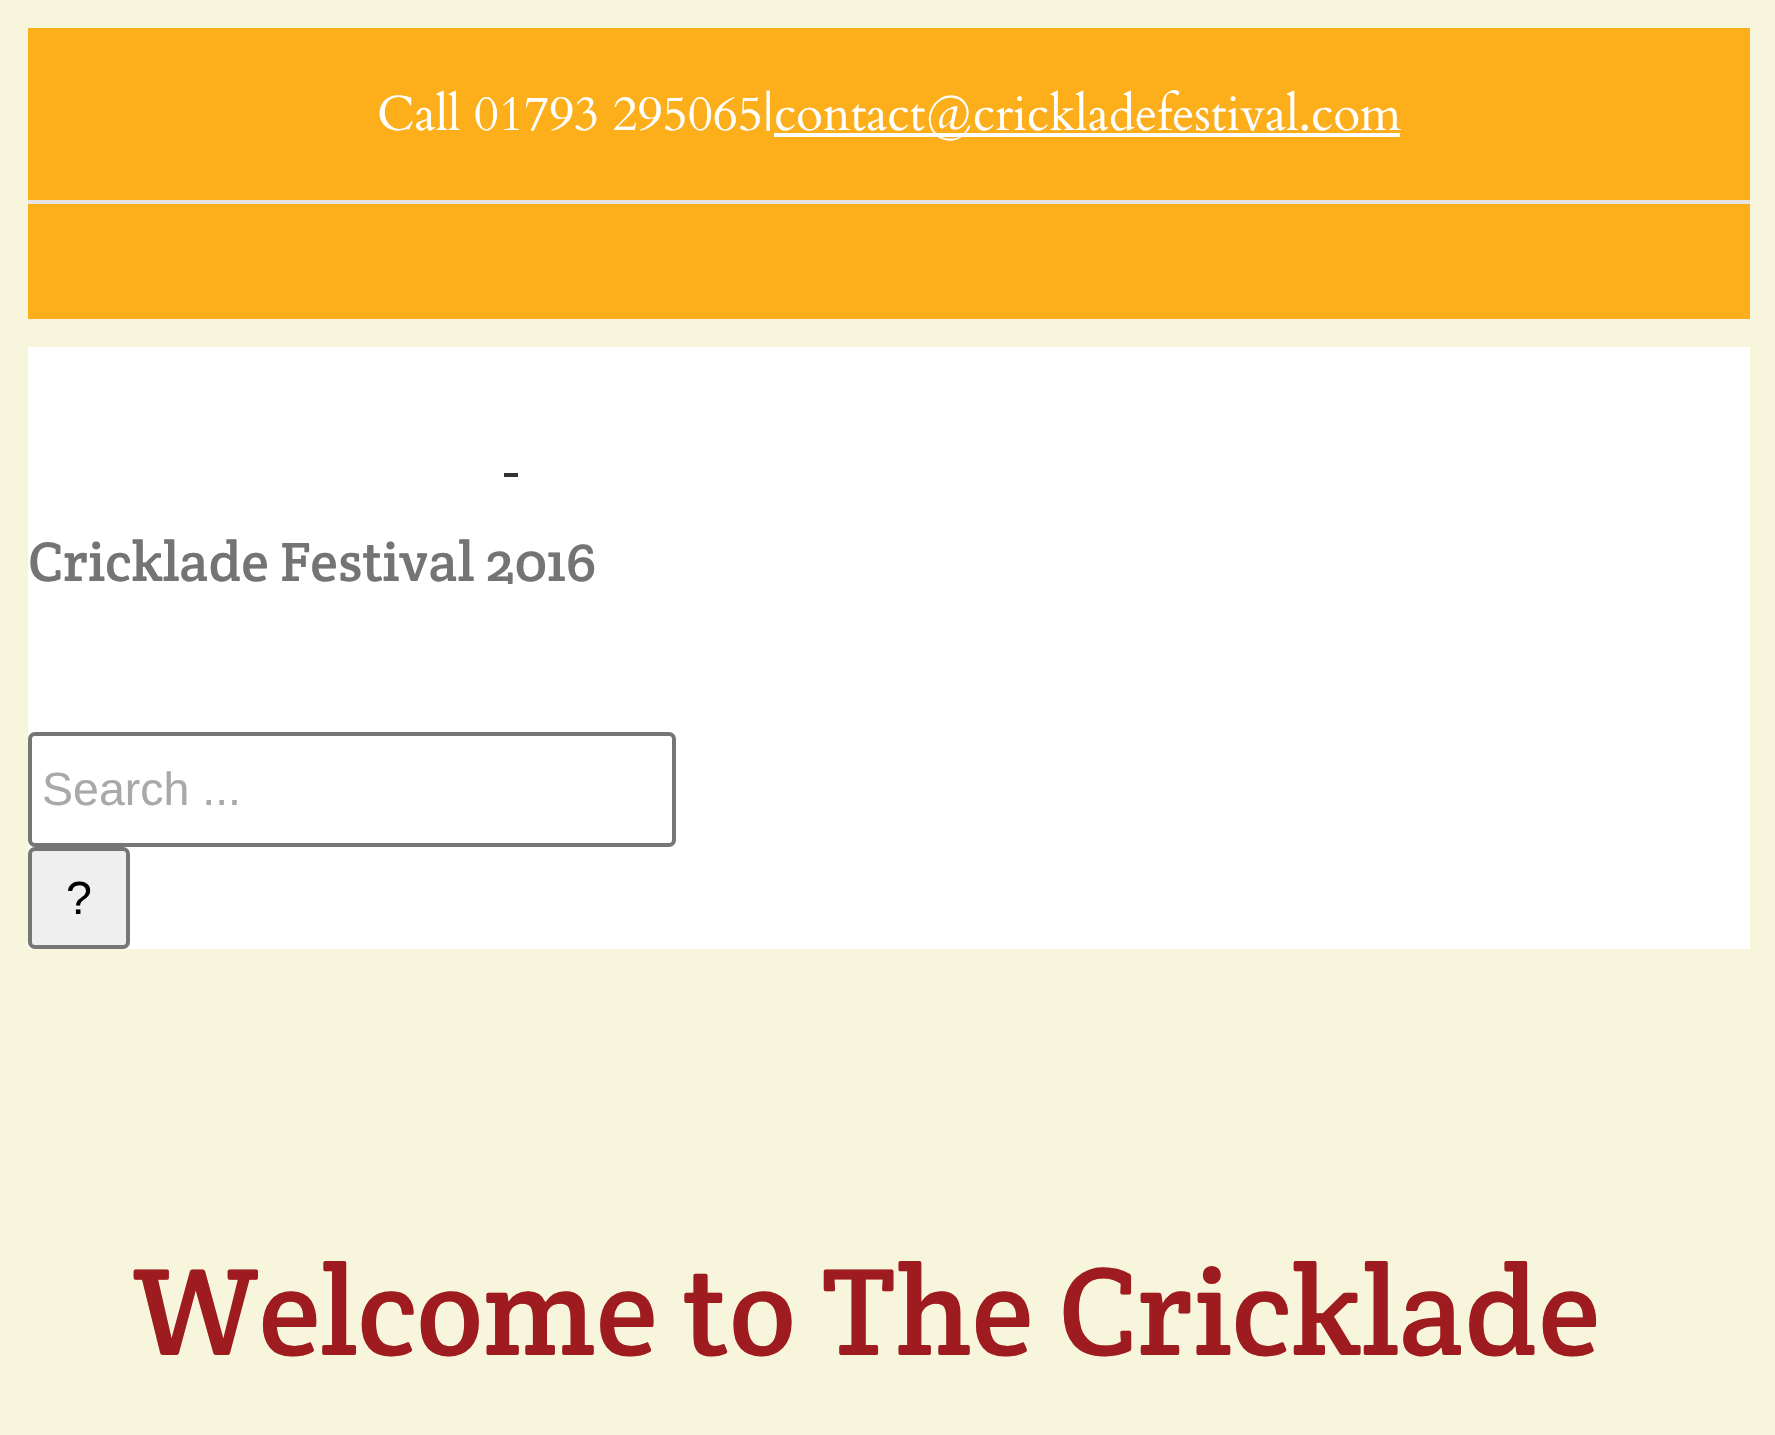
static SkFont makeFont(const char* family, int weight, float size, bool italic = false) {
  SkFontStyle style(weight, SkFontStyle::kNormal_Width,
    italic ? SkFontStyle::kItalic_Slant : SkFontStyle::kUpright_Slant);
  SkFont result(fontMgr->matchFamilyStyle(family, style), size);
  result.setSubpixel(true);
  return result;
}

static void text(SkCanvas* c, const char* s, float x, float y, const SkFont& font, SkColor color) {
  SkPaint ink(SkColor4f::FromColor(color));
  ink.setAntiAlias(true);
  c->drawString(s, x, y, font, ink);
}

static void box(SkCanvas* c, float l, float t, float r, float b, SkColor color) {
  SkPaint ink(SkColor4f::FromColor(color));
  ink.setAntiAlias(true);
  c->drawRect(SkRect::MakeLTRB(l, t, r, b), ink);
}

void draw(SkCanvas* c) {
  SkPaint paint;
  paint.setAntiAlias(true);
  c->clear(0xfff7f6dc);
  box(c, 28, 28, 1750, 319, 0xfffcae1b);
  box(c, 28, 200, 1750, 204, 0xffe5e5e5);
  SkFont face1 = makeFont("Cardo", 400, 49);
  text(c, "Call 01793 295065|", 377, 130, face1, 0xffffffff);
  box(c, 774, 133, 1400, 137, 0xffffffff);
  text(c, "contact@crickladefestival.com", 774, 130, face1, 0xffffffff);
  box(c, 28, 347, 1750, 949, 0xffffffff);
  box(c, 504, 473, 518, 477, 0xff333333);
  SkFont face2 = makeFont("Crete Round", 400, 56);
  text(c, "Cricklade Festival 2016", 28, 581, face2, 0xff747474);
  paint.setStyle(SkPaint::kStroke_Style);
  paint.setStrokeWidth(4);
  paint.setColor(0xff767676);
  c->drawRoundRect(SkRect::MakeLTRB(30, 734, 674, 845), 5, 5, paint);
  SkFont face3 = makeFont("Liberation Sans", 400, 46.5f);
  text(c, "Search ...", 42, 805, face3, 0xffaaa9a9);
  paint.setStyle(SkPaint::kFill_Style);
  paint.setColor(0xffefefef);
  c->drawRoundRect(SkRect::MakeLTRB(30, 849, 128, 947), 5, 5, paint);
  paint.setStyle(SkPaint::kStroke_Style);
  paint.setColor(0xff767676);
  c->drawRoundRect(SkRect::MakeLTRB(30, 849, 128, 947), 5, 5, paint);
  text(c, "?", 66, 914, face3, 0xff000000);
  SkFont face4 = makeFont("Crete Round", 400, 126);
  text(c, "Welcome to The Cricklade", 133, 1355, face4, 0xff9e1c1f);
}
